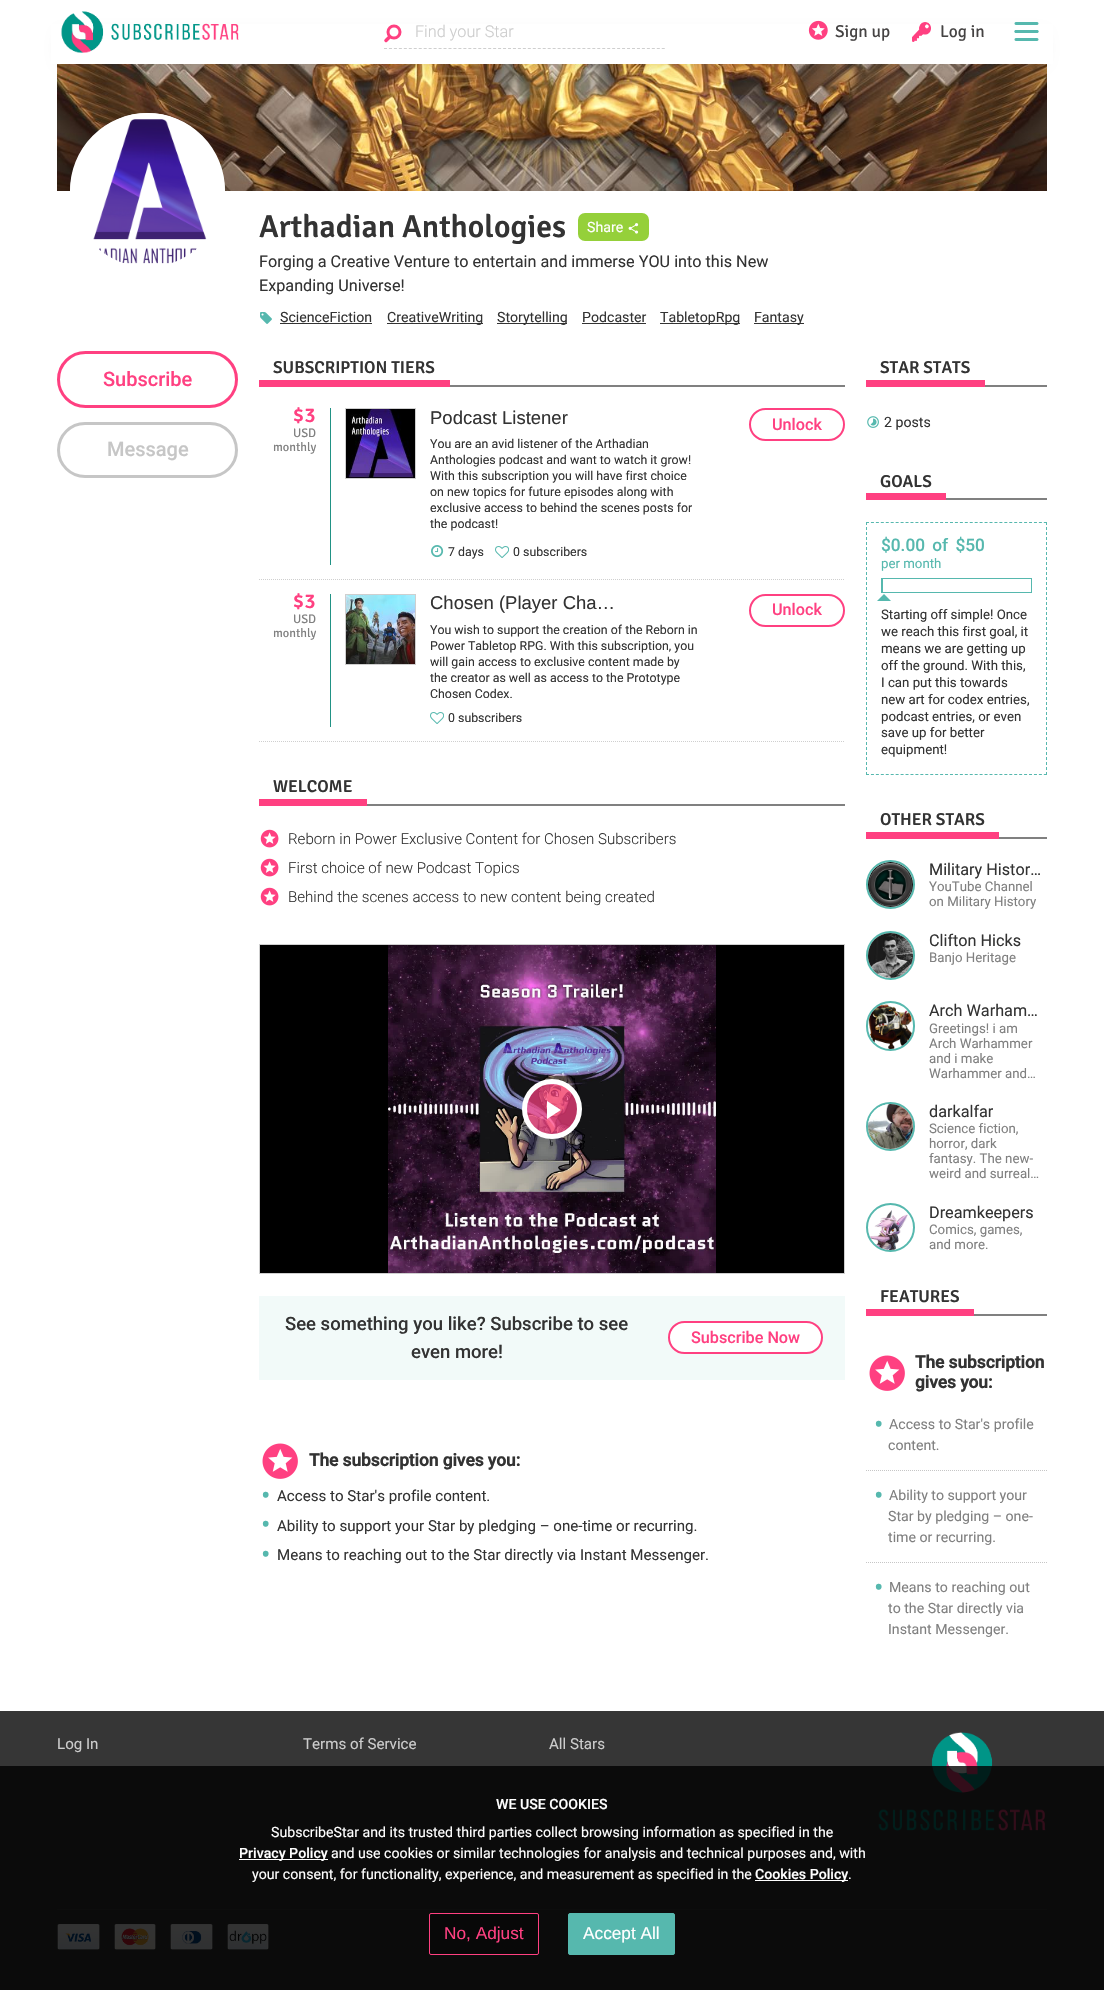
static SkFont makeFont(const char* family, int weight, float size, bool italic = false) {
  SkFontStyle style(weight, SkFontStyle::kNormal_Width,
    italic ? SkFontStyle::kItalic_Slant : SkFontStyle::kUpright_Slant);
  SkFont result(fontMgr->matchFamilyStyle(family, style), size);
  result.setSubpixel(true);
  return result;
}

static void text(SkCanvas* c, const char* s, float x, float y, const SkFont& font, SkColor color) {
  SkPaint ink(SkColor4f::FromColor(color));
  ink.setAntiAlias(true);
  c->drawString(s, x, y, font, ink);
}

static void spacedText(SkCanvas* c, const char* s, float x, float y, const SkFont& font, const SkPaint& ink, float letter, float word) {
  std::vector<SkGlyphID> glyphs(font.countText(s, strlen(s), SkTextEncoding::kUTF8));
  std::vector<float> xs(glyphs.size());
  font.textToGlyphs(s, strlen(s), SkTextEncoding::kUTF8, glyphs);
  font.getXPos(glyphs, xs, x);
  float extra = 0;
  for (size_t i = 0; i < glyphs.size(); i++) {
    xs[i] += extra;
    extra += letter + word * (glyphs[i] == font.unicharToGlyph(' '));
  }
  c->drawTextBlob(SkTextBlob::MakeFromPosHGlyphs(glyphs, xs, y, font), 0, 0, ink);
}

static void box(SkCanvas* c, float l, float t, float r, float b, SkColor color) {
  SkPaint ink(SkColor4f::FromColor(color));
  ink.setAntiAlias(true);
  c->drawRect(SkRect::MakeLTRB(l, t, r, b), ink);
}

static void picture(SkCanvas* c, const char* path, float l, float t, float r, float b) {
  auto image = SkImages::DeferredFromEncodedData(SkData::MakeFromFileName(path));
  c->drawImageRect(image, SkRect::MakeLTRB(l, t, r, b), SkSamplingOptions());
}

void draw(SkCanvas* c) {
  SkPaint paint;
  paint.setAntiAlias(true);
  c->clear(0xffffffff);
  picture(c, "img_05.png", 57, 64, 1047, 191);
  paint.setColor(0x1a000000);
  paint.setMaskFilter(SkMaskFilter::MakeBlur(kNormal_SkBlurStyle, 6));
  c->drawRoundRect(SkRect::MakeLTRB(58, 32, 1046, 64), 10, 10, paint);
  paint.setMaskFilter(nullptr);
  box(c, 51, 24, 1053, 64, 0xffffffff);
  picture(c, "img_01.png", 61, 11, 239, 53);
  paint.setStyle(SkPaint::kStroke_Style);
  paint.setStrokeWidth(1);
  paint.setColor(0xffcfcfcf);
  paint.setPathEffect(SkDashPathEffect::Make({{3, 1.96f}}, 0));
  c->drawPath(SkPathBuilder().moveTo(384, 48.5f).lineTo(665, 48.5f).detach(), paint);
  paint.setPathEffect(nullptr);
  paint.setStrokeWidth(3);
  paint.setColor(0xffff4081);
  c->drawCircle(394, 32, 6, paint);
  paint.setStrokeWidth(3.5f);
  paint.setStrokeCap(SkPaint::kRound_Cap);
  c->drawPath(SkPathBuilder().moveTo(386, 40.5f).lineTo(389.5f, 37).detach(), paint);
  SkFont face1 = makeFont("Roboto", 300, 16.2f);
  text(c, "Find your Star", 415, 37, face1, 0xffcccccc);
  picture(c, "img_02.png", 808, 20, 828, 40);
  SkFont face2 = makeFont("Signika Negative", 400, 17.25f);
  text(c, "Sign up", 835, 37, face2, 0xff454343);
  picture(c, "img_03.png", 912, 22, 931, 42);
  text(c, "Log in", 940, 37, face2, 0xff454343);
  picture(c, "img_04.png", 1014, 22, 1039, 41);
  paint.setStyle(SkPaint::kFill_Style);
  paint.setColor(0xffffffff);
  c->drawOval(SkRect::MakeLTRB(70, 113, 225, 275), paint);
  c->drawRoundRect(SkRect::MakeLTRB(71, 114, 224, 268), 76.5f, 76.5f, paint);
  paint.setStyle(SkPaint::kStroke_Style);
  paint.setStrokeWidth(2);
  paint.setStrokeCap(SkPaint::kButt_Cap);
  c->drawRoundRect(SkRect::MakeLTRB(71, 114, 224, 268), 76.5f, 76.5f, paint);
  picture(c, "img_06.png", 93, 119, 207, 264);
  SkFont face3 = makeFont("Signika Negative", 600, 31.75f);
  text(c, "Arthadian Anthologies", 259, 237, face3, 0xff333333);
  paint.setStyle(SkPaint::kFill_Style);
  paint.setColor(0xff95d03a);
  c->drawRoundRect(SkRect::MakeLTRB(579, 214, 648, 240), 6, 6, paint);
  paint.setStyle(SkPaint::kStroke_Style);
  c->drawRoundRect(SkRect::MakeLTRB(579, 214, 648, 240), 6, 6, paint);
  SkFont face4 = makeFont("Roboto", 400, 14.15f);
  text(c, "Share", 587, 232, face4, 0xffffffff);
  picture(c, "img_07.png", 628, 223, 639, 234);
  SkFont face5 = makeFont("Roboto", 400, 16.2f);
  text(c, "Forging a Creative Venture to entertain and immerse YOU into this New", 259, 267, face5, 0xff333333);
  text(c, "Expanding Universe!", 259, 291, face5, 0xff333333);
  picture(c, "img_08.png", 260, 312, 272, 324);
  text(c, "ScienceFiction", 280, 322, face4, 0xff333333);
  box(c, 280, 323, 372, 324, 0xff333333);
  box(c, 387, 323, 483, 324, 0xff333333);
  text(c, "CreativeWriting", 387, 322, face4, 0xff333333);
  box(c, 497, 323, 567, 324, 0xff333333);
  text(c, "Storytelling", 497, 322, face4, 0xff333333);
  text(c, "Podcaster", 582, 322, face4, 0xff333333);
  box(c, 582, 323, 646, 324, 0xff333333);
  box(c, 660, 323, 740, 324, 0xff333333);
  text(c, "TabletopRpg", 660, 322, face4, 0xff333333);
  box(c, 754, 323, 804, 324, 0xff333333);
  text(c, "Fantasy", 754, 322, face4, 0xff333333);
  paint.setStrokeWidth(3);
  paint.setColor(0xffff4081);
  c->drawRoundRect(SkRect::MakeLTRB(58.5f, 352.5f, 236.5f, 406.5f), 27, 27, paint);
  SkFont face6 = makeFont("Roboto", 500, 20);
  text(c, "Subscribe", 103, 386, face6, 0xffff4081);
  paint.setColor(0xffc6c6c6);
  c->drawRoundRect(SkRect::MakeLTRB(58.5f, 423.5f, 236.5f, 476.5f), 26.5f, 26.5f, paint);
  text(c, "Message", 107, 456, face6, 0xffc6c6c6);
  box(c, 450, 385, 845, 387, 0xff808080);
  SkFont face7 = makeFont("Signika Negative", 600, 17.25f);
  text(c, "SUBSCRIPTION TIERS", 273, 373, face7, 0xff333333);
  box(c, 259, 380, 450, 387, 0xffff4081);
  paint.setStrokeWidth(1);
  paint.setColor(0xffcfcfcf);
  paint.setPathEffect(SkDashPathEffect::Make({{1, 1}}, 0));
  c->drawPath(SkPathBuilder().moveTo(259, 579.5f).lineTo(845, 579.5f).detach(), paint);
  paint.setPathEffect(nullptr);
  SkFont face8 = makeFont("Signika Negative", 600, 21);
  text(c, "$3", 293, 422, face8, 0xffff4081);
  SkFont face9 = makeFont("Signika Negative", 400, 12.35f);
  text(c, "USD", 293, 437, face9, 0xff808080);
  text(c, "monthly", 273, 451, face9, 0xff808080);
  box(c, 330, 408, 331, 565, 0xff219285);
  c->drawRect(SkRect::MakeLTRB(345.5f, 408.5f, 415.5f, 478.5f), paint);
  picture(c, "img_09.png", 346, 409, 415, 478);
  SkFont face10 = makeFont("Liberation Sans", 400, 18.5f);
  text(c, "Podcast Listener", 430, 424, face10, 0xff333333);
  SkFont face11 = makeFont("Roboto", 400, 12.35f);
  text(c, "You are an avid listener of the Arthadian", 430, 448, face11, 0xff333333);
  text(c, "Anthologies podcast and want to watch it grow!", 430, 464, face11, 0xff333333);
  text(c, "With this subscription you will have first choice", 430, 480, face11, 0xff333333);
  text(c, "on new topics for future episodes along with", 430, 496, face11, 0xff333333);
  text(c, "exclusive access to behind the scenes posts for", 430, 512, face11, 0xff333333);
  text(c, "the podcast!", 430, 528, face11, 0xff333333);
  picture(c, "img_10.png", 431, 545, 444, 558);
  text(c, "7 days", 448, 556, face11, 0xff333333);
  picture(c, "img_11.png", 495, 546, 509, 558);
  text(c, "0 subscribers", 513, 556, face11, 0xff333333);
  paint.setStrokeWidth(2);
  paint.setColor(0xffff4081);
  c->drawRoundRect(SkRect::MakeLTRB(750, 409, 844, 440), 15.5f, 15.5f, paint);
  SkFont face12 = makeFont("Roboto", 500, 16.2f);
  text(c, "Unlock", 772, 430, face12, 0xffff4081);
  paint.setStrokeWidth(1);
  paint.setColor(0xffcfcfcf);
  paint.setPathEffect(SkDashPathEffect::Make({{1, 1}}, 0));
  c->drawPath(SkPathBuilder().moveTo(259, 741.5f).lineTo(845, 741.5f).detach(), paint);
  paint.setPathEffect(nullptr);
  text(c, "$3", 293, 608, face8, 0xffff4081);
  text(c, "USD", 293, 623, face9, 0xff808080);
  text(c, "monthly", 273, 637, face9, 0xff808080);
  box(c, 330, 594, 331, 727, 0xff219285);
  c->drawRect(SkRect::MakeLTRB(345.5f, 594.5f, 415.5f, 664.5f), paint);
  picture(c, "img_12.png", 346, 595, 415, 664);
  text(c, "Chosen (Player Cha…", 430, 609, face10, 0xff333333);
  text(c, "You wish to support the creation of the Reborn in", 430, 634, face11, 0xff333333);
  text(c, "Power Tabletop RPG. With this subscription, you", 430, 650, face11, 0xff333333);
  text(c, "will gain access to exclusive content made by", 430, 666, face11, 0xff333333);
  text(c, "the creator as well as access to the Prototype", 430, 682, face11, 0xff333333);
  text(c, "Chosen Codex.", 430, 698, face11, 0xff333333);
  picture(c, "img_11.png", 430, 712, 444, 724);
  text(c, "0 subscribers", 448, 722, face11, 0xff333333);
  paint.setStrokeWidth(2);
  paint.setColor(0xffff4081);
  c->drawRoundRect(SkRect::MakeLTRB(750, 595, 844, 626), 15.5f, 15.5f, paint);
  text(c, "Unlock", 772, 615, face12, 0xffff4081);
  box(c, 367, 804, 845, 806, 0xff808080);
  text(c, "WELCOME", 273, 792, face7, 0xff333333);
  box(c, 259, 799, 367, 806, 0xffff4081);
  picture(c, "img_13.png", 260, 829, 279, 848);
  SkFont face13 = makeFont("Roboto", 300, 15.1f);
  text(c, "Reborn in Power Exclusive Content for Chosen Subscribers", 288, 844, face13, 0xff333333);
  picture(c, "img_13.png", 260, 858, 279, 877);
  text(c, "First choice of new Podcast Topics", 288, 873, face13, 0xff333333);
  picture(c, "img_13.png", 260, 887, 279, 906);
  text(c, "Behind the scenes access to new content being created", 288, 902, face13, 0xff333333);
  paint.setStrokeWidth(1);
  paint.setColor(0xffcfcfcf);
  c->drawRect(SkRect::MakeLTRB(259.5f, 944.5f, 844.5f, 1273.5f), paint);
  box(c, 260, 945, 844, 1273, 0xff000000);
  picture(c, "img_14.png", 388, 945, 716, 1273);
  paint.setStyle(SkPaint::kFill_Style);
  paint.setColor(0xb3ff4081);
  c->drawCircle(552, 1109, 27.5f, paint);
  paint.setStyle(SkPaint::kStroke_Style);
  paint.setStrokeWidth(5);
  paint.setColor(0xffffffff);
  c->drawCircle(552, 1109, 27.5f, paint);
  paint.setStyle(SkPaint::kFill_Style);
  c->drawPath(SkPathBuilder().moveTo(547, 1101).lineTo(547, 1119).lineTo(561, 1110).close().detach(), paint);
  box(c, 259, 1296, 845, 1380, 0xfff2faf9);
  SkFont face14 = makeFont("Roboto", 500, 18.5f);
  text(c, "See something you like? Subscribe to see", 285, 1330, face14, 0xff333333);
  text(c, "even more!", 411, 1358, face14, 0xff333333);
  c->drawRoundRect(SkRect::MakeLTRB(669, 1322, 822, 1353), 15.5f, 15.5f, paint);
  paint.setStyle(SkPaint::kStroke_Style);
  paint.setStrokeWidth(2);
  paint.setColor(0xffff4081);
  c->drawRoundRect(SkRect::MakeLTRB(669, 1322, 822, 1353), 15.5f, 15.5f, paint);
  text(c, "Subscribe Now", 691, 1343, face12, 0xffff4081);
  picture(c, "img_15.png", 262, 1443, 298, 1479);
  SkFont face15 = makeFont("Roboto", 700, 17.25f);
  text(c, "The subscription gives you:", 309, 1466, face15, 0xff333333);
  SkFont face16 = makeFont("Roboto", 400, 28);
  text(c, "•", 261, 1505, face16, 0xff56b8ae);
  SkFont face17 = makeFont("Roboto", 400, 15.1f);
  text(c, "Access to Star's profile content.", 277, 1501, face17, 0xff333333);
  text(c, "•", 261, 1534, face16, 0xff56b8ae);
  text(c, "Ability to support your Star by pledging – one-time or recurring.", 277, 1531, face17, 0xff333333);
  text(c, "•", 261, 1564, face16, 0xff56b8ae);
  text(c, "Means to reaching out to the Star directly via Instant Messenger.", 277, 1560, face17, 0xff333333);
  box(c, 985, 385, 1047, 387, 0xff808080);
  text(c, "STAR STATS", 880, 373, face7, 0xff333333);
  box(c, 866, 380, 985, 387, 0xffff4081);
  picture(c, "img_16.png", 867, 416, 879, 428);
  text(c, "2 posts", 884, 427, face4, 0xff333333);
  box(c, 946, 498, 1047, 500, 0xff808080);
  text(c, "GOALS", 880, 487, face7, 0xff333333);
  box(c, 866, 493, 946, 500, 0xffff4081);
  paint.setStrokeWidth(1);
  paint.setColor(0xff56b8ae);
  paint.setPathEffect(SkDashPathEffect::Make({{3, 1.94f}}, 0));
  c->drawPath(SkPathBuilder().moveTo(866, 522.5f).lineTo(1047, 522.5f).detach(), paint);
  paint.setPathEffect(nullptr);
  paint.setPathEffect(SkDashPathEffect::Make({{3, 2}}, 0));
  c->drawPath(SkPathBuilder().moveTo(1046.5f, 522).lineTo(1046.5f, 775).detach(), paint);
  paint.setPathEffect(nullptr);
  paint.setPathEffect(SkDashPathEffect::Make({{3, 1.94f}}, 0));
  c->drawPath(SkPathBuilder().moveTo(866, 774.5f).lineTo(1047, 774.5f).detach(), paint);
  paint.setPathEffect(nullptr);
  paint.setPathEffect(SkDashPathEffect::Make({{3, 2}}, 0));
  c->drawPath(SkPathBuilder().moveTo(866.5f, 522).lineTo(866.5f, 775).detach(), paint);
  paint.setPathEffect(nullptr);
  SkFont face18 = makeFont("Roboto", 500, 17.25f);
  paint.setStyle(SkPaint::kFill_Style);
  spacedText(c, "$0.00 of $50", 881, 551, face18, paint, 0, 3);
  SkFont face19 = makeFont("Roboto", 400, 13.25f);
  text(c, "per month", 881, 568, face19, 0xff56b8ae);
  paint.setStyle(SkPaint::kStroke_Style);
  c->drawRect(SkRect::MakeLTRB(881.5f, 578.5f, 1031.5f, 592.5f), paint);
  box(c, 882, 579, 883, 592, 0xff56b8ae);
  paint.setStyle(SkPaint::kFill_Style);
  c->drawPath(SkPathBuilder().moveTo(891, 601).lineTo(877, 601).lineTo(884, 594).close().detach(), paint);
  text(c, "Starting off simple! Once", 881, 619, face19, 0xff333333);
  text(c, "we reach this first goal, it", 881, 636, face19, 0xff333333);
  text(c, "means we are getting up", 881, 653, face19, 0xff333333);
  text(c, "off the ground. With this,", 881, 670, face19, 0xff333333);
  text(c, "I can put this towards", 881, 687, face19, 0xff333333);
  text(c, "new art for codex entries,", 881, 704, face19, 0xff333333);
  text(c, "podcast entries, or even", 881, 721, face19, 0xff333333);
  text(c, "save up for better", 881, 737, face19, 0xff333333);
  text(c, "equipment!", 881, 754, face19, 0xff333333);
  box(c, 999, 837, 1047, 839, 0xff808080);
  text(c, "OTHER STARS", 880, 825, face7, 0xff333333);
  box(c, 866, 832, 999, 839, 0xffff4081);
  paint.setStyle(SkPaint::kStroke_Style);
  paint.setStrokeWidth(2);
  c->drawCircle(890.5f, 884.5f, 23.5f, paint);
  picture(c, "img_17.png", 868, 862, 913, 907);
  text(c, "Military Histor…", 929, 875, face5, 0xff333333);
  text(c, "YouTube Channel", 929, 891, face19, 0xff808080);
  text(c, "on Military History", 929, 906, face19, 0xff808080);
  c->drawCircle(890.5f, 955.5f, 23.5f, paint);
  picture(c, "img_18.png", 868, 933, 913, 978);
  text(c, "Clifton Hicks", 929, 946, face5, 0xff333333);
  text(c, "Banjo Heritage", 929, 962, face19, 0xff808080);
  c->drawRoundRect(SkRect::MakeLTRB(867, 1002, 914, 1050), 23.5f, 23.5f, paint);
  picture(c, "img_19.png", 868, 1004, 912, 1049);
  text(c, "Arch Warham…", 929, 1016, face5, 0xff333333);
  text(c, "Greetings! i am", 929, 1033, face19, 0xff808080);
  text(c, "Arch Warhammer", 929, 1048, face19, 0xff808080);
  text(c, "and i make", 929, 1063, face19, 0xff808080);
  text(c, "Warhammer and…", 929, 1078, face19, 0xff808080);
  c->drawCircle(890.5f, 1126.5f, 23.5f, paint);
  picture(c, "img_20.png", 868, 1104, 913, 1149);
  text(c, "darkalfar", 929, 1117, face5, 0xff333333);
  text(c, "Science fiction,", 929, 1133, face19, 0xff808080);
  text(c, "horror, dark", 929, 1148, face19, 0xff808080);
  text(c, "fantasy. The new-", 929, 1163, face19, 0xff808080);
  text(c, "weird and surreal…", 929, 1178, face19, 0xff808080);
  c->drawCircle(890.5f, 1227.5f, 23.5f, paint);
  picture(c, "img_21.png", 870, 1210, 908, 1250);
  text(c, "Dreamkeepers", 929, 1218, face5, 0xff333333);
  text(c, "Comics, games,", 929, 1234, face19, 0xff808080);
  text(c, "and more.", 929, 1249, face19, 0xff808080);
  box(c, 974, 1314, 1047, 1316, 0xff808080);
  text(c, "FEATURES", 880, 1302, face7, 0xff333333);
  box(c, 866, 1309, 974, 1316, 0xffff4081);
  picture(c, "img_15.png", 869, 1355, 905, 1391);
  text(c, "The subscription", 915, 1368, face15, 0xff333333);
  text(c, "gives you:", 915, 1388, face15, 0xff333333);
  text(c, "•", 874, 1434, face16, 0xff56b8ae);
  text(c, "Access to Star's profile", 889, 1429, face4, 0xff808080);
  text(c, "content.", 888, 1450, face4, 0xff808080);
  paint.setStrokeWidth(1);
  paint.setColor(0xffc6c6c6);
  paint.setPathEffect(SkDashPathEffect::Make({{1, 1}}, 0));
  c->drawPath(SkPathBuilder().moveTo(866, 1470.5f).lineTo(1047, 1470.5f).detach(), paint);
  paint.setPathEffect(nullptr);
  text(c, "•", 874, 1505, face16, 0xff56b8ae);
  text(c, "Ability to support your", 889, 1500, face4, 0xff808080);
  text(c, "Star by pledging – one-", 888, 1521, face4, 0xff808080);
  text(c, "time or recurring.", 888, 1542, face4, 0xff808080);
  paint.setPathEffect(SkDashPathEffect::Make({{1, 1}}, 0));
  c->drawPath(SkPathBuilder().moveTo(866, 1562.5f).lineTo(1047, 1562.5f).detach(), paint);
  paint.setPathEffect(nullptr);
  text(c, "•", 874, 1597, face16, 0xff56b8ae);
  text(c, "Means to reaching out", 889, 1592, face4, 0xff808080);
  text(c, "to the Star directly via", 888, 1613, face4, 0xff808080);
  text(c, "Instant Messenger.", 888, 1634, face4, 0xff808080);
  box(c, 0, 1711, 1104, 1990, 0xff363636);
  text(c, "Log In", 57, 1749, face17, 0xffcccccc);
  text(c, "Terms of Service", 303, 1749, face17, 0xffcccccc);
  text(c, "All Stars", 549, 1749, face17, 0xffcccccc);
  picture(c, "img_22.png", 878, 1732, 1046, 1831);
  box(c, 57, 1909, 1047, 1910, 0xff404040);
  picture(c, "img_23.png", 57, 1924, 100, 1950);
  picture(c, "img_24.png", 114, 1924, 156, 1950);
  picture(c, "img_25.png", 170, 1924, 213, 1950);
  picture(c, "img_26.png", 227, 1924, 269, 1950);
  box(c, 0, 1766, 1104, 1990, 0xcc000000);
  SkFont face20 = makeFont("Roboto", 500, 14.15f);
  text(c, "WE USE COOKIES", 496, 1809, face20, 0xffffffff);
  text(c, "SubscribeStar and its trusted third parties collect browsing information as specified in the", 271, 1837, face4, 0xffffffff);
  box(c, 239, 1859, 328, 1860, 0xffffffff);
  text(c, "Privacy Policy", 239, 1858, face20, 0xffffffff);
  text(c, "and use cookies or similar technologies for analysis and technical purposes and, with", 331, 1858, face4, 0xffffffff);
  text(c, "your consent, for functionality, experience, and measurement as specified in the", 252, 1879, face4, 0xffffffff);
  box(c, 755, 1880, 848, 1881, 0xffffffff);
  text(c, "Cookies Policy", 755, 1879, face20, 0xffffffff);
  text(c, ".", 848, 1879, face4, 0xffffffff);
  paint.setStyle(SkPaint::kFill_Style);
  paint.setColor(0x4d000000);
  c->drawRoundRect(SkRect::MakeLTRB(429.5f, 1913.5f, 538.5f, 1954.5f), 1.5f, 1.5f, paint);
  paint.setStyle(SkPaint::kStroke_Style);
  paint.setColor(0xffff4081);
  c->drawRoundRect(SkRect::MakeLTRB(429.5f, 1913.5f, 538.5f, 1954.5f), 1.5f, 1.5f, paint);
  SkFont face21 = makeFont("Liberation Sans", 400, 17.25f);
  text(c, "No, Adjust", 444, 1939, face21, 0xffff4081);
  paint.setStyle(SkPaint::kFill_Style);
  paint.setColor(0xff56b8ae);
  c->drawRoundRect(SkRect::MakeLTRB(568.5f, 1913.5f, 674.5f, 1954.5f), 1.5f, 1.5f, paint);
  paint.setStyle(SkPaint::kStroke_Style);
  c->drawRoundRect(SkRect::MakeLTRB(568.5f, 1913.5f, 674.5f, 1954.5f), 1.5f, 1.5f, paint);
  text(c, "Accept All", 583, 1939, face21, 0xffffffff);
}
